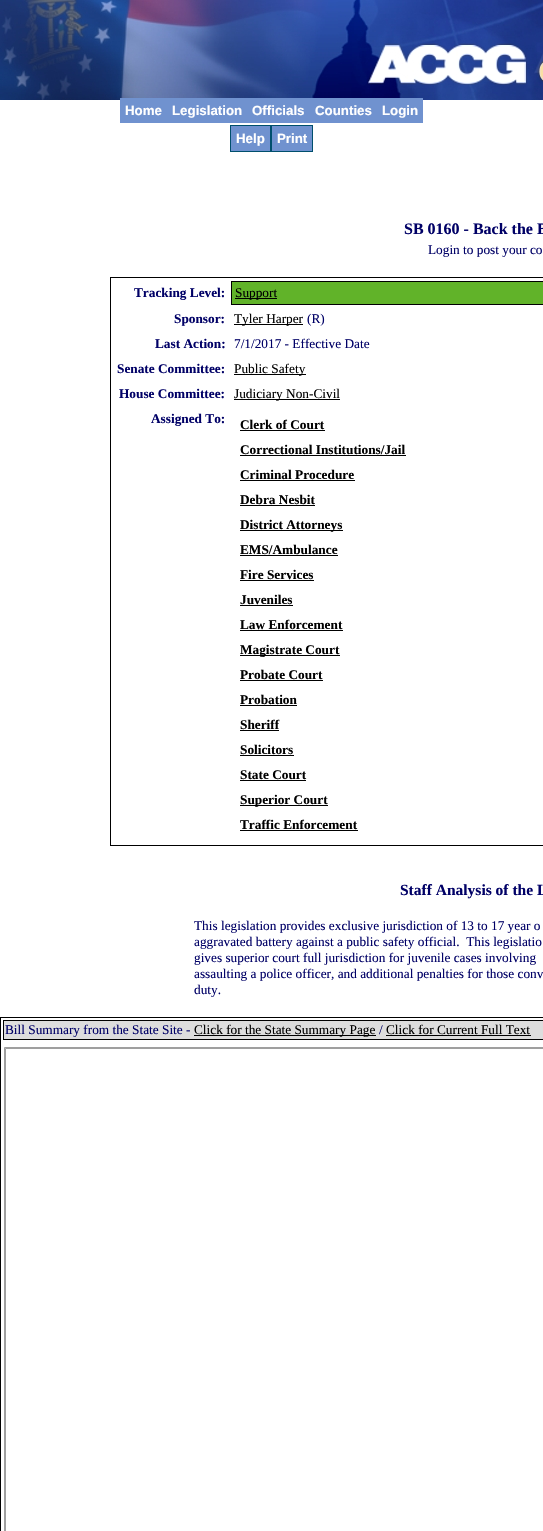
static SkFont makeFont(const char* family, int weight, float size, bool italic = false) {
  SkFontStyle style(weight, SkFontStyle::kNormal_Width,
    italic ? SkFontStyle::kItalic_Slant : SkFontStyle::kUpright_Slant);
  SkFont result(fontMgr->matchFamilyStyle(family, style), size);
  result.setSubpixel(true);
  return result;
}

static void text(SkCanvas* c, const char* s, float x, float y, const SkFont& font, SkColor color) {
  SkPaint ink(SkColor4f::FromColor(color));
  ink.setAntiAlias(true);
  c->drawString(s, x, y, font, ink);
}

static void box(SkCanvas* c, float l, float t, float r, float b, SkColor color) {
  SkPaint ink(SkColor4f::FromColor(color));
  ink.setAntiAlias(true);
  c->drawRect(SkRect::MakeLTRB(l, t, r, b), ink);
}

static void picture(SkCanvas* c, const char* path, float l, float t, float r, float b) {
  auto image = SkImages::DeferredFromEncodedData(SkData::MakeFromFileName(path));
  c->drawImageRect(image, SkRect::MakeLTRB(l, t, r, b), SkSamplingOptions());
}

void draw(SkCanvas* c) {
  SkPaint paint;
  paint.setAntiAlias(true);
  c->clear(0xffffffff);
  picture(c, "img_01.png", 0, 0, 543, 100);
  box(c, 120, 98, 423, 123, 0xff7092cf);
  SkFont face1 = makeFont("Liberation Sans", 700, 13.3f);
  text(c, "Home", 125, 115, face1, 0xffffffff);
  text(c, "Legislation", 172, 115, face1, 0xffffffff);
  text(c, "Officials", 252, 115, face1, 0xffffffff);
  text(c, "Counties", 315, 115, face1, 0xffffffff);
  text(c, "Login", 382, 115, face1, 0xffffffff);
  paint.setColor(0xff7092cf);
  c->drawRect(SkRect::MakeLTRB(230.5f, 125.5f, 312.5f, 151.5f), paint);
  paint.setStyle(SkPaint::kStroke_Style);
  paint.setStrokeWidth(1);
  paint.setColor(0xff004f6d);
  c->drawRect(SkRect::MakeLTRB(230.5f, 125.5f, 312.5f, 151.5f), paint);
  text(c, "Help", 236, 143, face1, 0xffffffff);
  box(c, 270, 126, 272, 151, 0xff004f6d);
  text(c, "Print", 277, 143, face1, 0xffffffff);
  SkFont face2 = makeFont("Liberation Serif", 700, 16);
  text(c, "SB 0160 - Back the B", 404, 234, face2, 0xff000066);
  SkFont face3 = makeFont("Liberation Serif", 400, 13.3f);
  text(c, "Login to post your co", 428, 254, face3, 0xff000066);
  paint.setColor(0xff000000);
  c->drawRect(SkRect::MakeLTRB(110.5f, 277.5f, 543.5f, 845.5f), paint);
  SkFont face4 = makeFont("Liberation Serif", 700, 13.3f);
  text(c, "Tracking Level:", 134, 297, face4, 0xff000066);
  paint.setStyle(SkPaint::kFill_Style);
  paint.setColor(0xff61b329);
  c->drawRect(SkRect::MakeLTRB(231.5f, 281.5f, 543.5f, 304.5f), paint);
  paint.setStyle(SkPaint::kStroke_Style);
  paint.setColor(0xff000000);
  c->drawRect(SkRect::MakeLTRB(231.5f, 281.5f, 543.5f, 304.5f), paint);
  box(c, 235, 298, 277, 299, 0xff000000);
  text(c, "Support", 235, 297, face3, 0xff000000);
  text(c, "Sponsor:", 174, 323, face4, 0xff000066);
  box(c, 234, 324, 303, 325, 0xff000000);
  text(c, "Tyler Harper", 234, 323, face3, 0xff000000);
  text(c, "(R)", 307, 323, face3, 0xff000066);
  text(c, "Last Action:", 155, 348, face4, 0xff000066);
  text(c, "7/1/2017 - Effective Date", 234, 348, face3, 0xff000066);
  text(c, "Senate Committee:", 117, 373, face4, 0xff000066);
  box(c, 234, 374, 306, 375, 0xff000000);
  text(c, "Public Safety", 234, 373, face3, 0xff000000);
  text(c, "House Committee:", 119, 398, face4, 0xff000066);
  box(c, 234, 399, 340, 400, 0xff000000);
  text(c, "Judiciary Non-Civil", 234, 398, face3, 0xff000000);
  text(c, "Assigned To:", 151, 423, face4, 0xff000066);
  text(c, "Clerk of Court", 240, 429, face4, 0xff000000);
  box(c, 240, 430, 325, 431, 0xff000000);
  text(c, "Correctional Institutions/Jail", 240, 454, face4, 0xff000000);
  box(c, 240, 455, 406, 456, 0xff000000);
  text(c, "Criminal Procedure", 240, 479, face4, 0xff000000);
  box(c, 240, 480, 355, 481, 0xff000000);
  text(c, "Debra Nesbit", 240, 504, face4, 0xff000000);
  box(c, 240, 505, 315, 506, 0xff000000);
  box(c, 240, 530, 343, 531, 0xff000000);
  text(c, "District Attorneys", 240, 529, face4, 0xff000000);
  text(c, "EMS/Ambulance", 240, 554, face4, 0xff000000);
  box(c, 240, 555, 338, 556, 0xff000000);
  text(c, "Fire Services", 240, 579, face4, 0xff000000);
  box(c, 240, 580, 314, 581, 0xff000000);
  text(c, "Juveniles", 240, 604, face4, 0xff000000);
  box(c, 240, 605, 293, 606, 0xff000000);
  text(c, "Law Enforcement", 240, 629, face4, 0xff000000);
  box(c, 240, 630, 343, 631, 0xff000000);
  box(c, 240, 655, 340, 656, 0xff000000);
  text(c, "Magistrate Court", 240, 654, face4, 0xff000000);
  text(c, "Probate Court", 240, 679, face4, 0xff000000);
  box(c, 240, 680, 323, 681, 0xff000000);
  text(c, "Probation", 240, 704, face4, 0xff000000);
  box(c, 240, 705, 297, 706, 0xff000000);
  text(c, "Sheriff", 240, 729, face4, 0xff000000);
  box(c, 240, 730, 279, 731, 0xff000000);
  text(c, "Solicitors", 240, 754, face4, 0xff000000);
  box(c, 240, 755, 294, 756, 0xff000000);
  text(c, "State Court", 240, 779, face4, 0xff000000);
  box(c, 240, 780, 306, 781, 0xff000000);
  box(c, 240, 805, 328, 806, 0xff000000);
  text(c, "Superior Court", 240, 804, face4, 0xff000000);
  text(c, "Traffic Enforcement", 240, 829, face4, 0xff000000);
  box(c, 240, 830, 358, 831, 0xff000000);
  SkFont face5 = makeFont("Liberation Serif", 700, 15.5f);
  text(c, "Staff Analysis of the L", 400, 895, face5, 0xff000066);
  text(c, "This legislation provides exclusive jurisdiction of 13 to 17 year o", 194, 930, face3, 0xff000066);
  text(c, "aggravated battery against a public safety official.  This legislatio", 194, 946, face3, 0xff000066);
  text(c, "gives superior court full jurisdiction for juvenile cases involving", 194, 962, face3, 0xff000066);
  text(c, "assaulting a police officer, and additional penalties for those conv", 194, 978, face3, 0xff000066);
  text(c, "duty.", 194, 994, face3, 0xff000066);
  c->drawRect(SkRect::MakeLTRB(0.5f, 1017.5f, 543.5f, 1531.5f), paint);
  paint.setStyle(SkPaint::kFill_Style);
  paint.setColor(0xffdddddd);
  c->drawRect(SkRect::MakeLTRB(3.5f, 1020.5f, 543.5f, 1039.5f), paint);
  paint.setStyle(SkPaint::kStroke_Style);
  paint.setColor(0xff000000);
  c->drawRect(SkRect::MakeLTRB(3.5f, 1020.5f, 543.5f, 1039.5f), paint);
  text(c, "Bill Summary from the State Site -", 5, 1034, face3, 0xff000066);
  box(c, 194, 1035, 376, 1036, 0xff000000);
  text(c, "Click for the State Summary Page", 194, 1034, face3, 0xff000000);
  text(c, "/", 379, 1034, face3, 0xff000066);
  text(c, "Click for Current Full Text", 386, 1034, face3, 0xff000000);
  box(c, 386, 1035, 531, 1036, 0xff000000);
  paint.setStyle(SkPaint::kFill_Style);
  paint.setColor(0xff9f9f9f);
  c->drawPath(SkPathBuilder().moveTo(4, 1047).lineTo(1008, 1047).lineTo(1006, 1049).lineTo(6, 1049).close().detach(), paint);
  c->drawPath(SkPathBuilder().moveTo(4, 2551).lineTo(4, 1047).lineTo(6, 1049).lineTo(6, 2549).close().detach(), paint);
}
